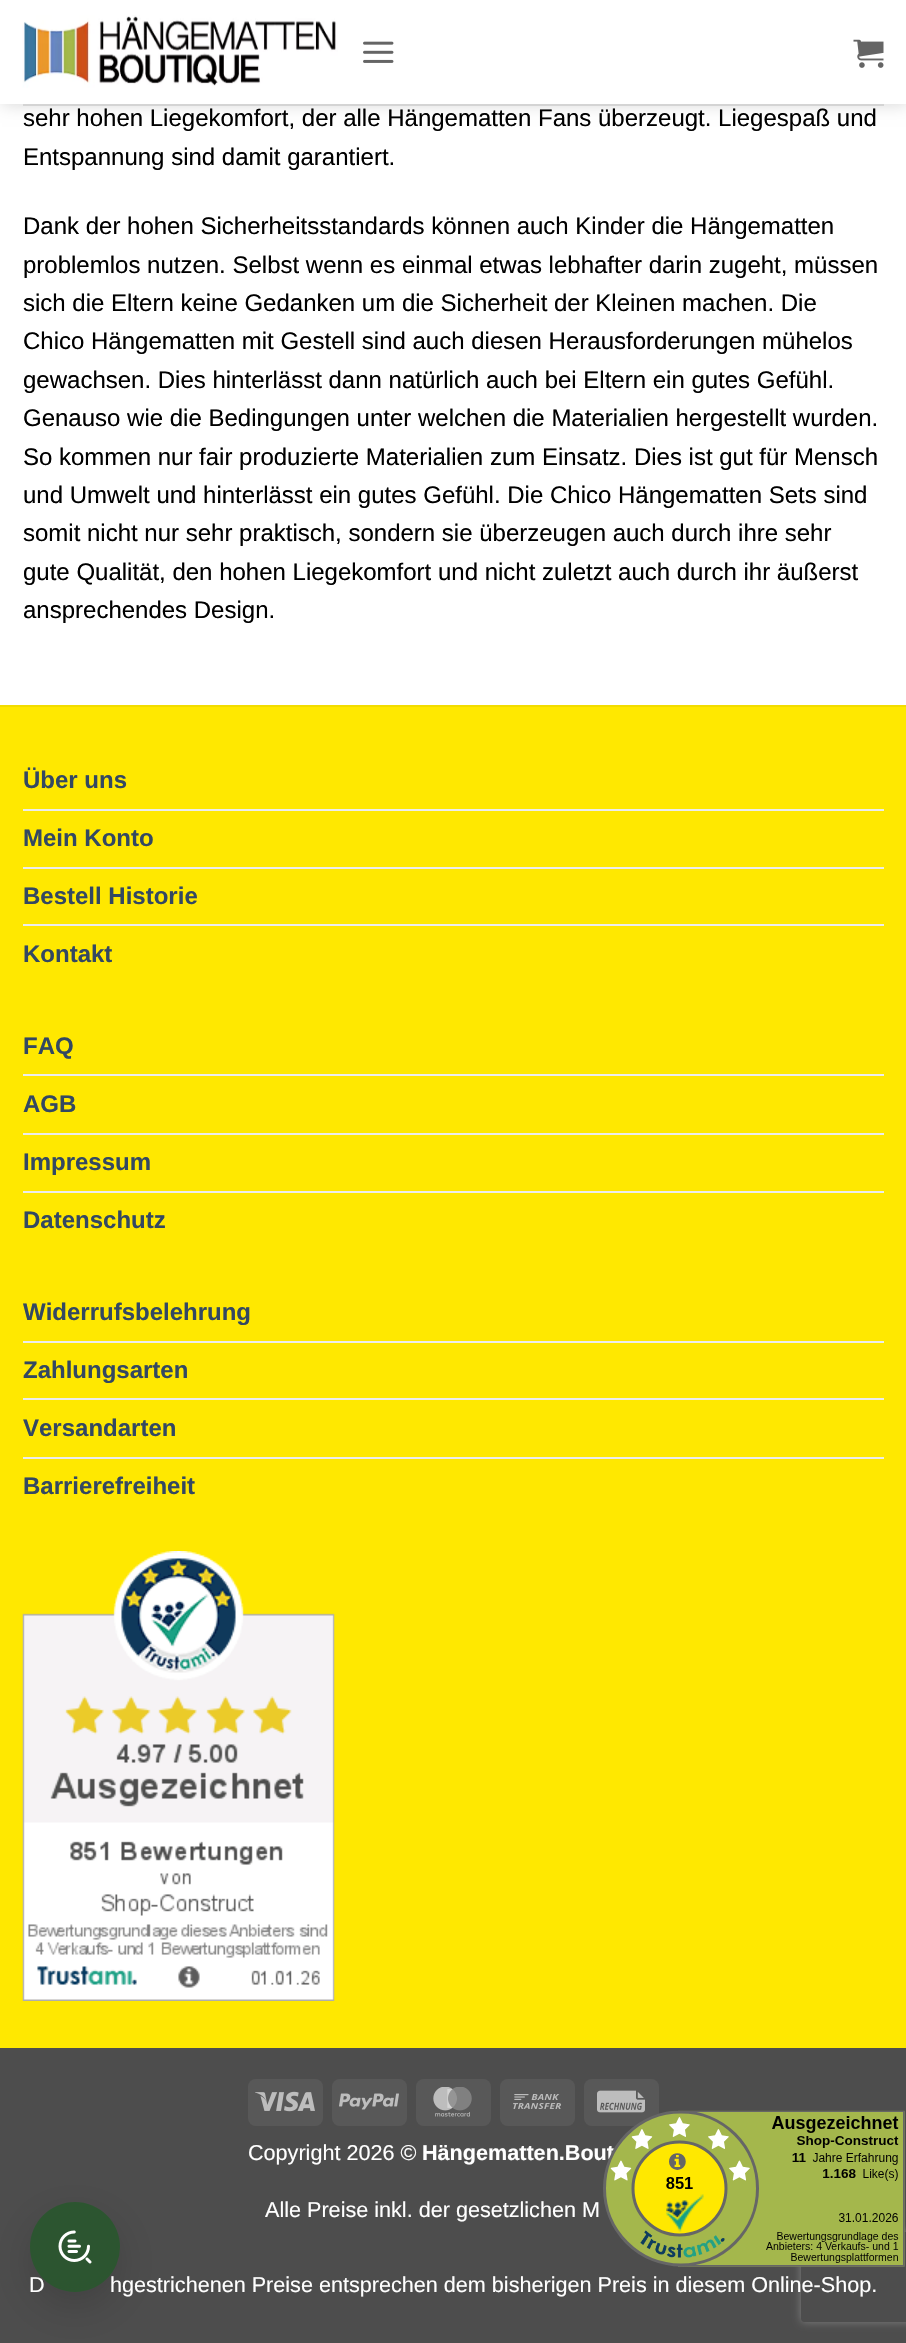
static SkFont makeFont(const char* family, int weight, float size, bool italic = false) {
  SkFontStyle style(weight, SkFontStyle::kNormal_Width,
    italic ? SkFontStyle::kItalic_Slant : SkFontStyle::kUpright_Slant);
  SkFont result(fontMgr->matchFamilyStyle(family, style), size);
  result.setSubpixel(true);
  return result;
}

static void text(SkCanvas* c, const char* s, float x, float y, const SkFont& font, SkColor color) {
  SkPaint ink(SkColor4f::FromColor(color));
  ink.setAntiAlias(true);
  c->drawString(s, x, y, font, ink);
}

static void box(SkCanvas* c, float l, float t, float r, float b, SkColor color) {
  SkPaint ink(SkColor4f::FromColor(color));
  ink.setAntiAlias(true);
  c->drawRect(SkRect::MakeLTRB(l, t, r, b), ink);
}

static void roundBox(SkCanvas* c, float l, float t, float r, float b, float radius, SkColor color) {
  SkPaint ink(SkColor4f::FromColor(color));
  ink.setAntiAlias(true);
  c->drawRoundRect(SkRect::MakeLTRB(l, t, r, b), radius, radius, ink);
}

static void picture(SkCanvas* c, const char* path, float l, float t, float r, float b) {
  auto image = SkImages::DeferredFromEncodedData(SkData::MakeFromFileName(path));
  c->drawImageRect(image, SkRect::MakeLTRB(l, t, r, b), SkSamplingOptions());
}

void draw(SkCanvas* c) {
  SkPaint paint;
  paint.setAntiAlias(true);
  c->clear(0xff4d4d4d);
  box(c, 0, 0, 906, 705, 0xffffffff);
  c->save();
  c->clipPath(SkPathBuilder(SkPathFillType::kEvenOdd).moveTo(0, 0).lineTo(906, 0).lineTo(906, 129).lineTo(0, 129).close().moveTo(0, 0).lineTo(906, 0).lineTo(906, 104).lineTo(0, 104).close().detach(), true);
  paint.setColor(0x26000000);
  paint.setMaskFilter(SkMaskFilter::MakeBlur(kNormal_SkBlurStyle, 7.5f));
  c->drawRect(SkRect::MakeLTRB(2, 2, 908, 105), paint);
  paint.setMaskFilter(nullptr);
  c->restore();
  picture(c, "img_01.png", 22, 15, 338, 88);
  picture(c, "img_02.png", 363, 41, 394, 63);
  picture(c, "img_03.png", 853, 39, 884, 68);
  box(c, 23, 104, 884, 106, 0xffd4d4d4);
  box(c, 0, 103, 906, 104, 0xe6ffffff);
  SkFont face1 = makeFont("Liberation Sans", 400, 24);
  text(c, "sehr hohen Liegekomfort, der alle Hängematten Fans überzeugt. Liegespaß und", 23, 126, face1, 0xff000000);
  text(c, "Entspannung sind damit garantiert.", 23, 165, face1, 0xff000000);
  text(c, "Dank der hohen Sicherheitsstandards können auch Kinder die Hängematten", 23, 234, face1, 0xff000000);
  text(c, "problemlos nutzen. Selbst wenn es einmal etwas lebhafter darin zugeht, müssen", 23, 273, face1, 0xff000000);
  text(c, "sich die Eltern keine Gedanken um die Sicherheit der Kleinen machen. Die", 23, 311, face1, 0xff000000);
  text(c, "Chico Hängematten mit Gestell sind auch diesen Herausforderungen mühelos", 23, 349, face1, 0xff000000);
  text(c, "gewachsen. Dies hinterlässt dann natürlich auch bei Eltern ein gutes Gefühl.", 23, 388, face1, 0xff000000);
  text(c, "Genauso wie die Bedingungen unter welchen die Materialien hergestellt wurden.", 23, 426, face1, 0xff000000);
  text(c, "So kommen nur fair produzierte Materialien zum Einsatz. Dies ist gut für Mensch", 23, 465, face1, 0xff000000);
  text(c, "und Umwelt und hinterlässt ein gutes Gefühl. Die Chico Hängematten Sets sind", 23, 503, face1, 0xff000000);
  text(c, "somit nicht nur sehr praktisch, sondern sie überzeugen auch durch ihre sehr", 23, 541, face1, 0xff000000);
  text(c, "gute Qualität, den hohen Liegekomfort und nicht zuletzt auch durch ihr äußerst", 23, 580, face1, 0xff000000);
  text(c, "ansprechendes Design.", 23, 618, face1, 0xff000000);
  roundBox(c, 584, 2079, 659, 2126, 8, 0xff585858);
  picture(c, "img_10.png", 597, 2090, 645, 2113);
  SkFont face2 = makeFont("Liberation Sans", 700, 21.6f);
  text(c, "Hängematten.Bout", 422, 2160, face2, 0xffffffff);
  c->save();
  c->clipPath(SkPathBuilder(SkPathFillType::kEvenOdd).moveTo(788, 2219).lineTo(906, 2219).lineTo(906, 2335).lineTo(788, 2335).close().moveTo(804, 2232).lineTo(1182, 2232).cubicTo(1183.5f, 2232, 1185, 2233.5f, 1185, 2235).lineTo(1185, 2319).cubicTo(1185, 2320.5f, 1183.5f, 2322, 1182, 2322).lineTo(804, 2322).cubicTo(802.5f, 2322, 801, 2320.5f, 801, 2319).lineTo(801, 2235).cubicTo(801, 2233.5f, 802.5f, 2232, 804, 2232).close().detach(), true);
  paint.setColor(0xff808080);
  paint.setMaskFilter(SkMaskFilter::MakeBlur(kNormal_SkBlurStyle, 4));
  c->drawRoundRect(SkRect::MakeLTRB(801, 2232, 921, 2322), 3, 3, paint);
  paint.setMaskFilter(nullptr);
  c->restore();
  picture(c, "img_04.png", 603, 2110, 905, 2267);
  box(c, 0, 707, 906, 2048, 0xffffe800);
  box(c, 0, 705, 906, 707, 0xfff2dc00);
  SkFont face3 = makeFont("Liberation Sans", 700, 24);
  text(c, "Über uns", 23, 788, face3, 0xff334862);
  box(c, 23, 809, 884, 811, 0xffececec);
  text(c, "Mein Konto", 23, 846, face3, 0xff334862);
  box(c, 23, 867, 884, 869, 0xffececec);
  text(c, "Bestell Historie", 23, 904, face3, 0xff334862);
  box(c, 23, 924, 884, 926, 0xffececec);
  text(c, "Kontakt", 23, 962, face3, 0xff334862);
  text(c, "FAQ", 23, 1054, face3, 0xff334862);
  box(c, 23, 1074, 884, 1076, 0xffececec);
  text(c, "AGB", 23, 1112, face3, 0xff334862);
  box(c, 23, 1133, 884, 1135, 0xffececec);
  text(c, "Impressum", 23, 1170, face3, 0xff334862);
  box(c, 23, 1191, 884, 1193, 0xffececec);
  text(c, "Datenschutz", 23, 1228, face3, 0xff334862);
  text(c, "Widerrufsbelehrung", 23, 1320, face3, 0xff334862);
  box(c, 23, 1341, 884, 1343, 0xffececec);
  text(c, "Zahlungsarten", 23, 1378, face3, 0xff334862);
  box(c, 23, 1398, 884, 1400, 0xffececec);
  text(c, "Versandarten", 23, 1436, face3, 0xff334862);
  box(c, 23, 1457, 884, 1459, 0xffececec);
  text(c, "Barrierefreiheit", 23, 1494, face3, 0xff334862);
  picture(c, "img_05.png", 22, 1551, 335, 2001);
  roundBox(c, 248, 2079, 323, 2126, 8, 0xff585858);
  picture(c, "img_06.png", 255, 2091, 315, 2112);
  roundBox(c, 332, 2079, 407, 2126, 8, 0xff585858);
  picture(c, "img_07.png", 339, 2093, 399, 2110);
  roundBox(c, 416, 2079, 491, 2126, 8, 0xff585858);
  picture(c, "img_08.png", 433, 2087, 472, 2117);
  roundBox(c, 500, 2079, 575, 2126, 8, 0xff585858);
  picture(c, "img_09.png", 513, 2094, 561, 2109);
  SkFont face4 = makeFont("Liberation Sans", 400, 21.6f);
  text(c, "Copyright 2026 ©", 248, 2160, face4, 0xffffffff);
  paint.setColor(0x26000000);
  paint.setMaskFilter(SkMaskFilter::MakeBlur(kNormal_SkBlurStyle, 19));
  c->drawRoundRect(SkRect::MakeLTRB(30, 2217, 120, 2307), 45, 45, paint);
  paint.setMaskFilter(nullptr);
  text(c, "D", 29, 2292, face4, 0xffffffff);
  text(c, "hgestrichenen Preise entsprechen dem bisherigen Preis in diesem Online-Shop.", 110, 2292, face4, 0xffffffff);
  paint.setColor(0xff2c5530);
  c->drawCircle(75, 2247, 45, paint);
  picture(c, "img_11.png", 58, 2230, 92, 2264);
  text(c, "Alle Preise inkl. der gesetzlichen M", 265, 2217, face4, 0xffffffff);
}
